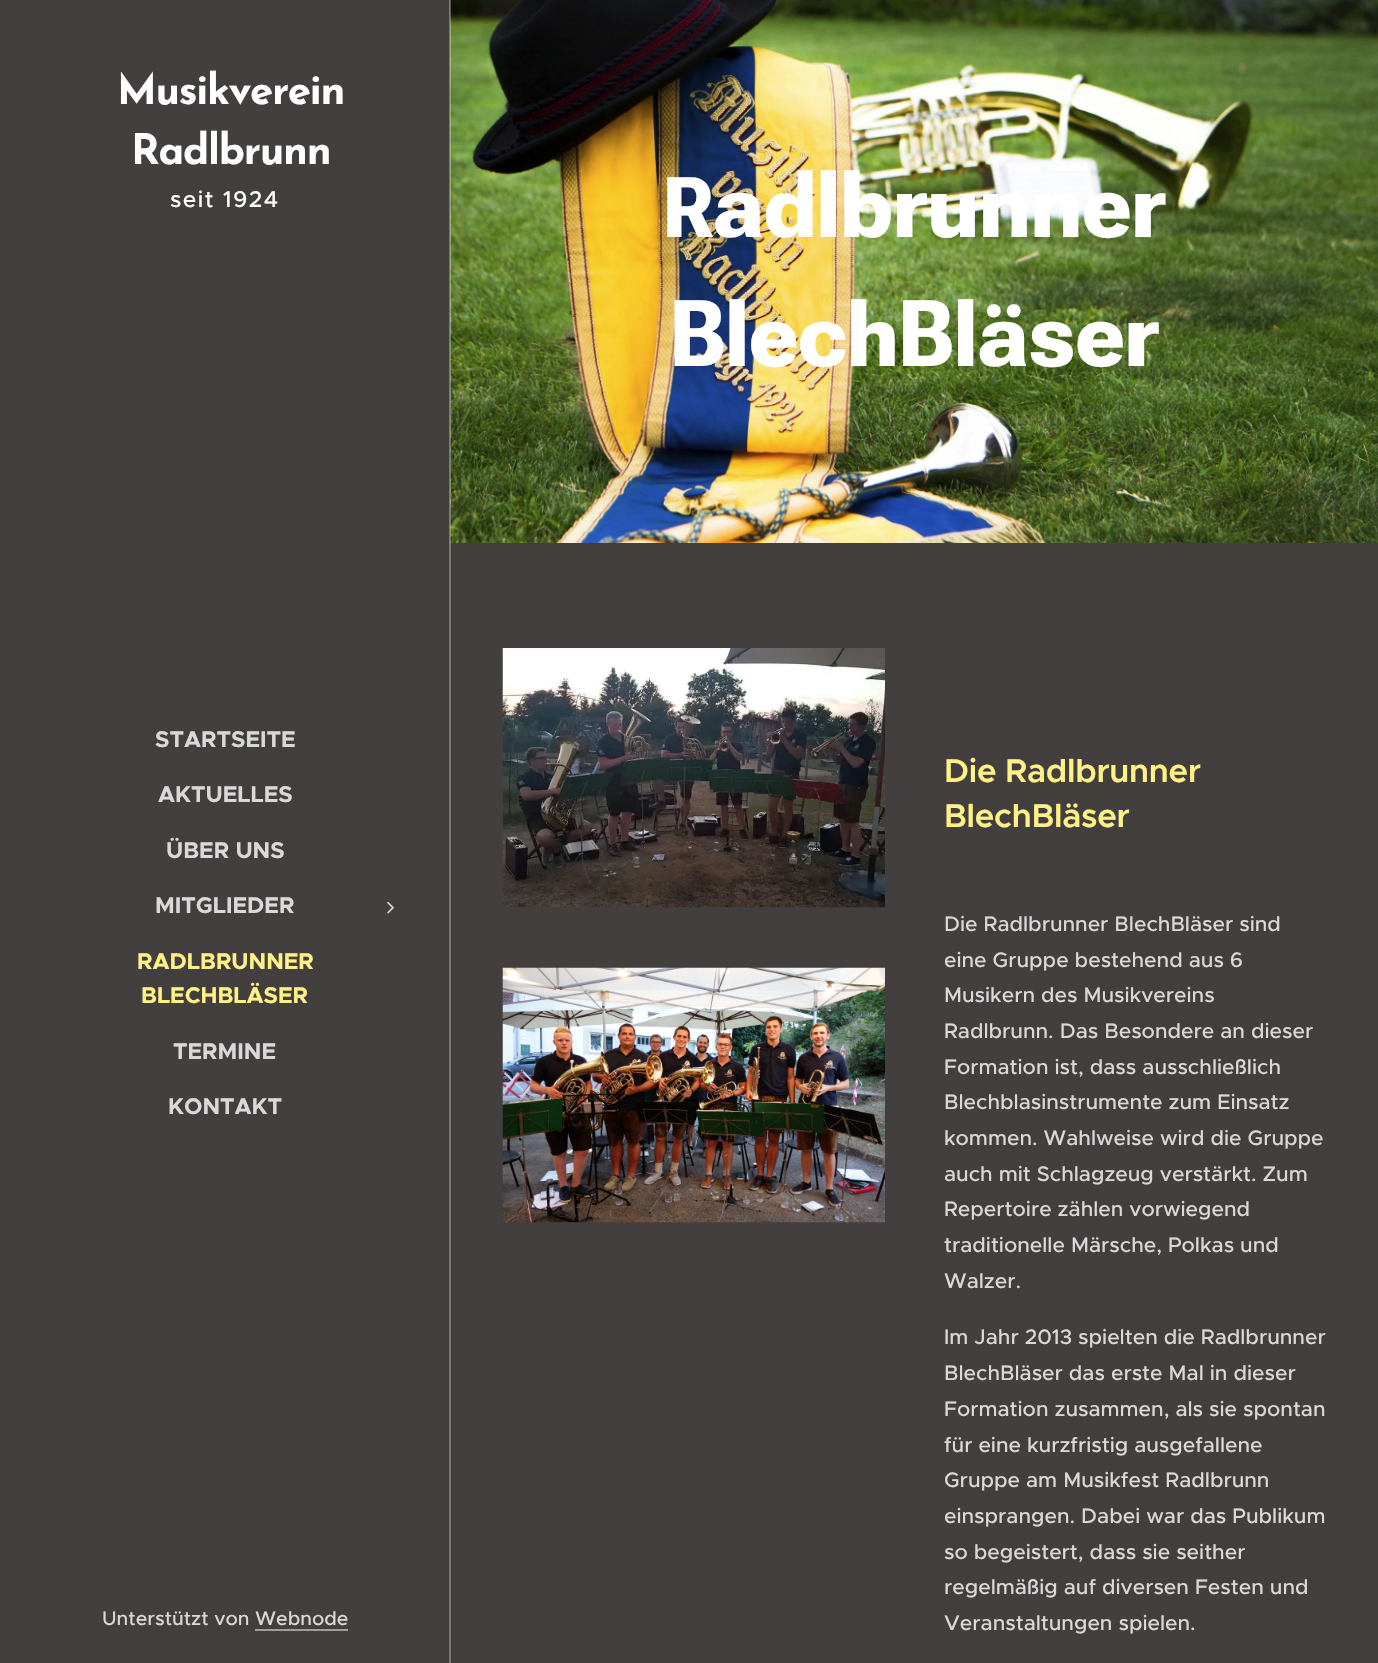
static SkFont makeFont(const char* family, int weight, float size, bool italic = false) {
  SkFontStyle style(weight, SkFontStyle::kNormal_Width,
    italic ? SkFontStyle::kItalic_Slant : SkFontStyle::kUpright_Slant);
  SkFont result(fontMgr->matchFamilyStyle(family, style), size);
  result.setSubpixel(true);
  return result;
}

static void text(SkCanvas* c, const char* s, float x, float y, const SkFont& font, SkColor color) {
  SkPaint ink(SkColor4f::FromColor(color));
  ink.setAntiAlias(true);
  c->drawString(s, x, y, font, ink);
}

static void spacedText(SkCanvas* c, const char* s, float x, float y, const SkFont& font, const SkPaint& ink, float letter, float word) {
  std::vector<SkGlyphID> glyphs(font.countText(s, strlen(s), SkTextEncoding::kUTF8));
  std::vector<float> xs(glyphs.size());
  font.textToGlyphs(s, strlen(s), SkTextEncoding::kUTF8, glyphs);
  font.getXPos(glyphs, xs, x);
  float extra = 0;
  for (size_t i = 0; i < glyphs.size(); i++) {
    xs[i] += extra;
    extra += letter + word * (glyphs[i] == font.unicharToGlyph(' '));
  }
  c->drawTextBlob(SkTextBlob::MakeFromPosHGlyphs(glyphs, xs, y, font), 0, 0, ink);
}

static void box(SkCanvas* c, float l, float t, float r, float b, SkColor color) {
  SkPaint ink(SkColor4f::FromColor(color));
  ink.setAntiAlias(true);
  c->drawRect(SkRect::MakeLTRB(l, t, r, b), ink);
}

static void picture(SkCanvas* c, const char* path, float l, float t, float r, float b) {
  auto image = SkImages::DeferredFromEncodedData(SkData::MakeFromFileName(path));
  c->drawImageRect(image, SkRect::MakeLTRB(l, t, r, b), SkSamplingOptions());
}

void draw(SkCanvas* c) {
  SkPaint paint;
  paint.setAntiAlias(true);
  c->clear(0xffffffff);
  box(c, 0, 0, 450, 1663, 0xff443f3f);
  SkFont face1 = makeFont("Josefin Sans", 700, 42);
  paint.setColor(0xffffffff);
  spacedText(c, "Musikverein", 117, 104, face1, paint, -1.25f, 0);
  spacedText(c, "Radlbrunn", 131, 164, face1, paint, -1.25f, 0);
  SkFont face2 = makeFont("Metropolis", 500, 22.75f);
  spacedText(c, "seit 1924", 170, 207, face2, paint, 1.5f, 0);
  SkFont face3 = makeFont("Metropolis", 700, 22.75f);
  text(c, "STARTSEITE", 155, 747, face3, 0xffdad9d9);
  text(c, "AKTUELLES", 158, 802, face3, 0xffdad9d9);
  text(c, "ÜBER UNS", 166, 858, face3, 0xffdad9d9);
  text(c, "MITGLIEDER", 155, 913, face3, 0xffdad9d9);
  picture(c, "img_01.png", 387, 901, 394, 914);
  text(c, "RADLBRUNNER", 137, 969, face3, 0xfffff186);
  text(c, "BLECHBLÄSER", 141, 1003, face3, 0xfffff186);
  text(c, "TERMINE", 173, 1059, face3, 0xffdad9d9);
  text(c, "KONTAKT", 168, 1114, face3, 0xffdad9d9);
  picture(c, "img_02.png", 450, 0, 1378, 543);
  box(c, 450, 543, 1378, 1663, 0xff443f3f);
  box(c, 449, 0, 451, 1663, 0x4dffffff);
  SkFont face4 = makeFont("Roboto Flex", 700, 84);
  text(c, "R", 663, 237, face4, 0xffffffff);
  SkFont face5 = makeFont("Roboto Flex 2", 700, 92.5f);
  text(c, "adlbrunner", 713, 237, face5, 0xffffffff);
  text(c, "BlechBläser", 670, 366, face5, 0xffffffff);
  picture(c, "img_03.png", 502, 648, 885, 908);
  picture(c, "img_04.png", 502, 967, 885, 1223);
  SkFont face6 = makeFont("Metropolis", 600, 33);
  paint.setColor(0xfffff186);
  spacedText(c, "Die Radlbrunner", 944, 782, face6, paint, -0.3f, 0);
  spacedText(c, "BlechBläser", 944, 827, face6, paint, -0.3f, 0);
  SkFont face7 = makeFont("Metropolis", 500, 21);
  text(c, "Die Radlbrunner BlechBläser sind", 944, 931, face7, 0xffdad9d9);
  text(c, "eine Gruppe bestehend aus 6", 944, 967, face7, 0xffdad9d9);
  text(c, "Musikern des Musikvereins", 944, 1002, face7, 0xffdad9d9);
  text(c, "Radlbrunn. Das Besondere an dieser", 944, 1038, face7, 0xffdad9d9);
  text(c, "Formation ist, dass ausschließlich", 944, 1074, face7, 0xffdad9d9);
  text(c, "Blechblasinstrumente zum Einsatz", 944, 1109, face7, 0xffdad9d9);
  text(c, "kommen. Wahlweise wird die Gruppe", 944, 1145, face7, 0xffdad9d9);
  text(c, "auch mit Schlagzeug verstärkt. Zum", 944, 1181, face7, 0xffdad9d9);
  text(c, "Repertoire zählen vorwiegend", 944, 1216, face7, 0xffdad9d9);
  text(c, "traditionelle Märsche, Polkas und", 944, 1252, face7, 0xffdad9d9);
  text(c, "Walzer.", 944, 1288, face7, 0xffdad9d9);
  text(c, "Im Jahr 2013 spielten die Radlbrunner", 944, 1344, face7, 0xffdad9d9);
  text(c, "BlechBläser das erste Mal in dieser", 944, 1380, face7, 0xffdad9d9);
  text(c, "Formation zusammen, als sie spontan", 944, 1416, face7, 0xffdad9d9);
  text(c, "für eine kurzfristig ausgefallene", 944, 1452, face7, 0xffdad9d9);
  text(c, "Gruppe am Musikfest Radlbrunn", 944, 1487, face7, 0xffdad9d9);
  text(c, "einsprangen. Dabei war das Publikum", 944, 1523, face7, 0xffdad9d9);
  text(c, "so begeistert, dass sie seither", 944, 1559, face7, 0xffdad9d9);
  text(c, "regelmäßig auf diversen Festen und", 944, 1594, face7, 0xffdad9d9);
  text(c, "Veranstaltungen spielen.", 944, 1630, face7, 0xffdad9d9);
  SkFont face8 = makeFont("Metropolis", 500, 19.5f);
  text(c, "Unterstützt von Webnode", 102, 1625, face8, 0xffdad9d9);
  box(c, 255, 1629, 348, 1631, 0xffa29f9f);
}
